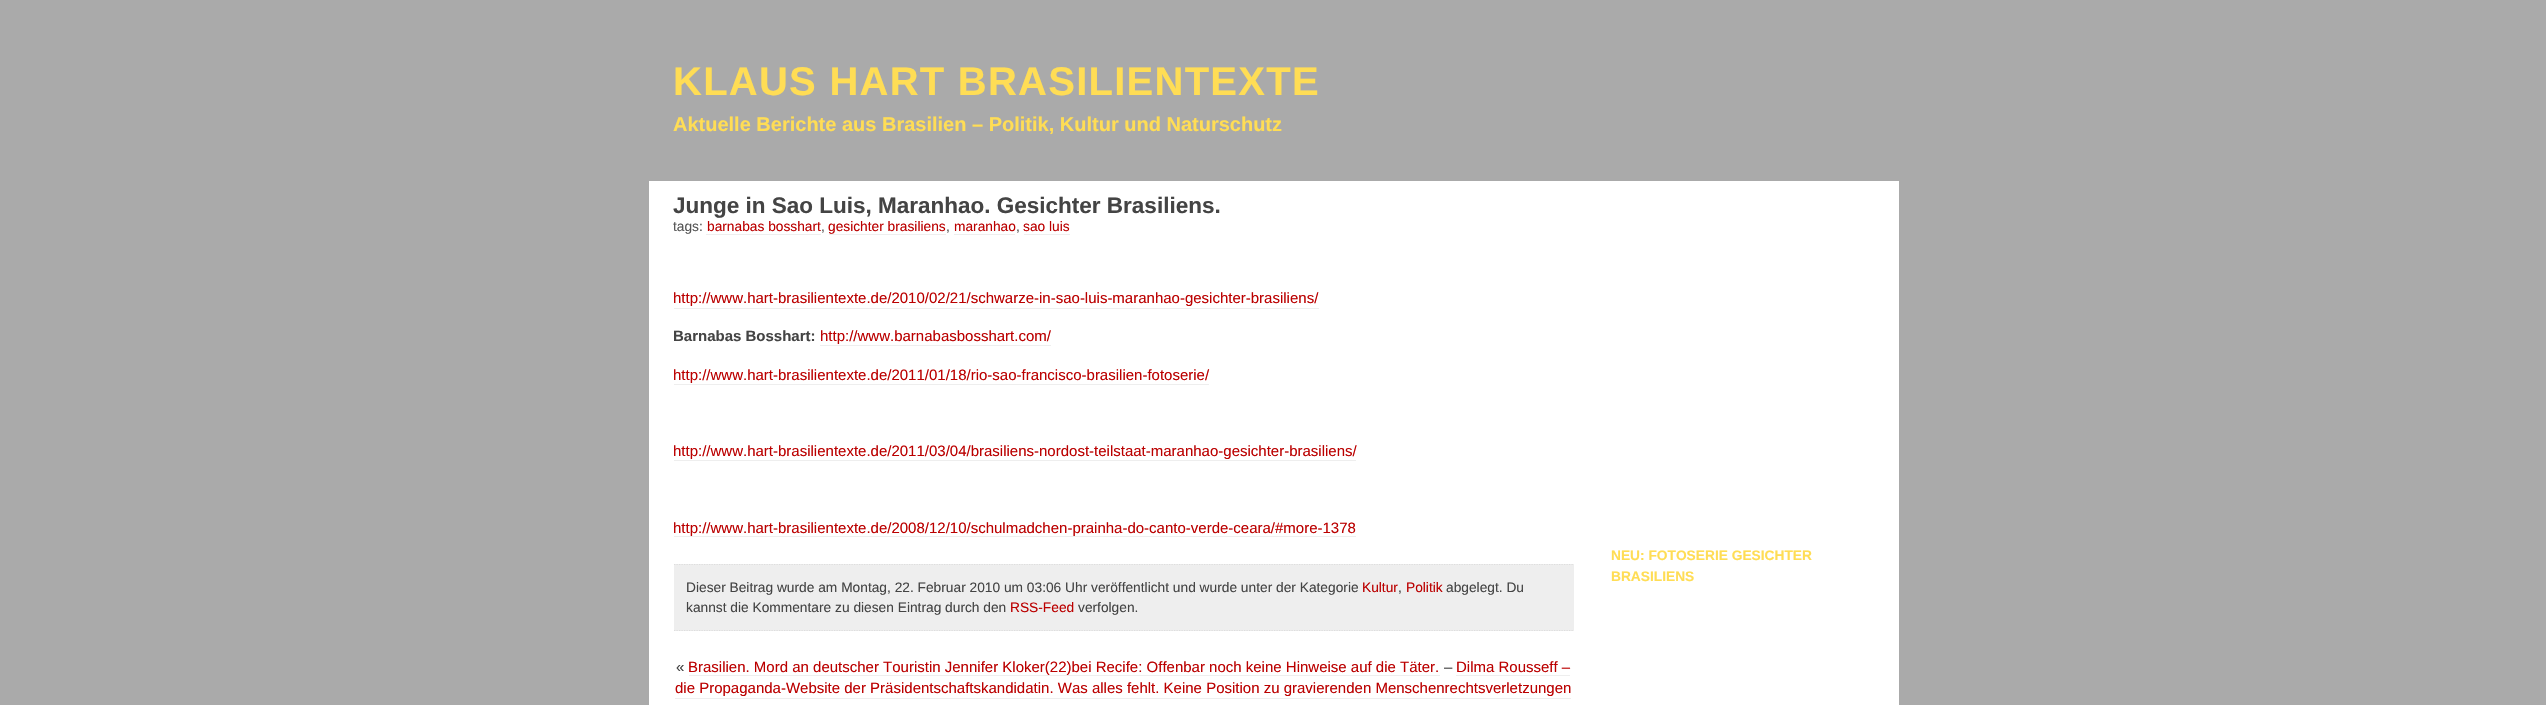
static SkFont makeFont(const char* family, int weight, float size, bool italic = false) {
  SkFontStyle style(weight, SkFontStyle::kNormal_Width,
    italic ? SkFontStyle::kItalic_Slant : SkFontStyle::kUpright_Slant);
  SkFont result(fontMgr->matchFamilyStyle(family, style), size);
  result.setSubpixel(true);
  return result;
}

static void text(SkCanvas* c, const char* s, float x, float y, const SkFont& font, SkColor color) {
  SkPaint ink(SkColor4f::FromColor(color));
  ink.setAntiAlias(true);
  c->drawString(s, x, y, font, ink);
}

static void spacedText(SkCanvas* c, const char* s, float x, float y, const SkFont& font, const SkPaint& ink, float letter, float word) {
  std::vector<SkGlyphID> glyphs(font.countText(s, strlen(s), SkTextEncoding::kUTF8));
  std::vector<float> xs(glyphs.size());
  font.textToGlyphs(s, strlen(s), SkTextEncoding::kUTF8, glyphs);
  font.getXPos(glyphs, xs, x);
  float extra = 0;
  for (size_t i = 0; i < glyphs.size(); i++) {
    xs[i] += extra;
    extra += letter + word * (glyphs[i] == font.unicharToGlyph(' '));
  }
  c->drawTextBlob(SkTextBlob::MakeFromPosHGlyphs(glyphs, xs, y, font), 0, 0, ink);
}

static void box(SkCanvas* c, float l, float t, float r, float b, SkColor color) {
  SkPaint ink(SkColor4f::FromColor(color));
  ink.setAntiAlias(true);
  c->drawRect(SkRect::MakeLTRB(l, t, r, b), ink);
}

void draw(SkCanvas* c) {
  SkPaint paint;
  paint.setAntiAlias(true);
  c->clear(0xffaaaaaa);
  SkFont face1 = makeFont("Liberation Sans", 700, 40);
  paint.setColor(0xffffdd55);
  spacedText(c, "KLAUS HART BRASILIENTEXTE", 673, 95, face1, paint, 1.25f, 0);
  SkFont face2 = makeFont("Liberation Sans", 700, 20);
  text(c, "Aktuelle Berichte aus Brasilien – Politik, Kultur und Naturschutz", 673, 131, face2, 0xffffdd55);
  box(c, 649, 181, 1899, 705, 0xffffffff);
  SkFont face3 = makeFont("Liberation Sans", 700, 22.5f);
  text(c, "Junge in Sao Luis, Maranhao. Gesichter Brasiliens.", 673, 213, face3, 0xff444444);
  SkFont face4 = makeFont("Liberation Sans", 400, 13.75f);
  text(c, "tags:", 673, 231, face4, 0xff555555);
  text(c, "barnabas bosshart", 707, 231, face4, 0xffbb0000);
  box(c, 706, 234, 821, 235, 0xffeeeeee);
  text(c, ",", 821, 231, face4, 0xff555555);
  text(c, "gesichter brasiliens", 828, 231, face4, 0xffbb0000);
  box(c, 829, 234, 946, 235, 0xffeeeeee);
  text(c, ",", 946, 231, face4, 0xff555555);
  text(c, "maranhao", 954, 231, face4, 0xffbb0000);
  box(c, 954, 234, 1015, 235, 0xffeeeeee);
  text(c, ",", 1016, 231, face4, 0xff555555);
  text(c, "sao luis", 1023, 231, face4, 0xffbb0000);
  box(c, 1024, 234, 1070, 235, 0xffeeeeee);
  SkFont face5 = makeFont("Liberation Sans", 400, 15);
  text(c, "http://www.hart-brasilientexte.de/2010/02/21/schwarze-in-sao-luis-maranhao-gesichter-brasiliens/", 673, 303, face5, 0xffbb0000);
  box(c, 674, 308, 1319, 309, 0xffeeeeee);
  SkFont face6 = makeFont("Liberation Sans", 700, 15);
  text(c, "Barnabas Bosshart:", 673, 341, face6, 0xff444444);
  text(c, "http://www.barnabasbosshart.com/", 820, 341, face5, 0xffbb0000);
  box(c, 820, 345, 1051, 346, 0xffeeeeee);
  text(c, "http://www.hart-brasilientexte.de/2011/01/18/rio-sao-francisco-brasilien-fotoserie/", 673, 380, face5, 0xffbb0000);
  box(c, 674, 384, 1209, 385, 0xffeeeeee);
  text(c, "http://www.hart-brasilientexte.de/2011/03/04/brasiliens-nordost-teilstaat-maranhao-gesichter-brasiliens/", 673, 456, face5, 0xffbb0000);
  box(c, 674, 460, 1356, 461, 0xffeeeeee);
  box(c, 674, 536, 1356, 537, 0xffeeeeee);
  text(c, "http://www.hart-brasilientexte.de/2008/12/10/schulmadchen-prainha-do-canto-verde-ceara/#more-1378", 673, 533, face5, 0xffbb0000);
  box(c, 674, 564, 1574, 631, 0xffeeeeee);
  paint.setStyle(SkPaint::kStroke_Style);
  paint.setStrokeWidth(1.2f);
  paint.setColor(0xffdddddd);
  paint.setPathEffect(SkDashPathEffect::Make({{1.25f, 1.25f}}, 0));
  c->drawPath(SkPathBuilder().moveTo(674, 564.5f).lineTo(1574, 564.5f).detach(), paint);
  paint.setPathEffect(nullptr);
  paint.setPathEffect(SkDashPathEffect::Make({{1.25f, 1.25f}}, 0));
  c->drawPath(SkPathBuilder().moveTo(674, 630.5f).lineTo(1574, 630.5f).detach(), paint);
  paint.setPathEffect(nullptr);
  text(c, "Dieser Beitrag wurde am Montag, 22. Februar 2010 um 03:06 Uhr veröffentlicht und wurde unter der Kategorie", 686, 592, face4, 0xff444444);
  text(c, "Kultur", 1362, 592, face4, 0xffbb0000);
  text(c, ",", 1398, 592, face4, 0xff444444);
  text(c, "Politik", 1406, 592, face4, 0xffbb0000);
  text(c, "abgelegt. Du", 1446, 592, face4, 0xff444444);
  text(c, "kannst die Kommentare zu diesen Eintrag durch den", 686, 612, face4, 0xff444444);
  text(c, "RSS-Feed", 1010, 612, face4, 0xffbb0000);
  text(c, "verfolgen.", 1078, 612, face4, 0xff444444);
  text(c, "«", 676, 672, face5, 0xff444444);
  box(c, 689, 675, 1440, 676, 0xffeeeeee);
  text(c, "Brasilien. Mord an deutscher Touristin Jennifer Kloker(22)bei Recife: Offenbar noch keine Hinweise auf die Täter.", 688, 672, face5, 0xffbb0000);
  text(c, "–", 1444, 672, face5, 0xff444444);
  text(c, "Dilma Rousseff –", 1456, 672, face5, 0xffbb0000);
  box(c, 1456, 675, 1570, 676, 0xffeeeeee);
  text(c, "die Propaganda-Website der Präsidentschaftskandidatin. Was alles fehlt. Keine Position zu gravierenden Menschenrechtsverletzungen", 675, 693, face5, 0xffbb0000);
  box(c, 675, 698, 1571, 699, 0xffeeeeee);
  SkFont face7 = makeFont("Liberation Sans", 700, 13.75f);
  text(c, "NEU: FOTOSERIE GESICHTER", 1611, 560, face7, 0xffffdd55);
  text(c, "BRASILIENS", 1611, 581, face7, 0xffffdd55);
}
